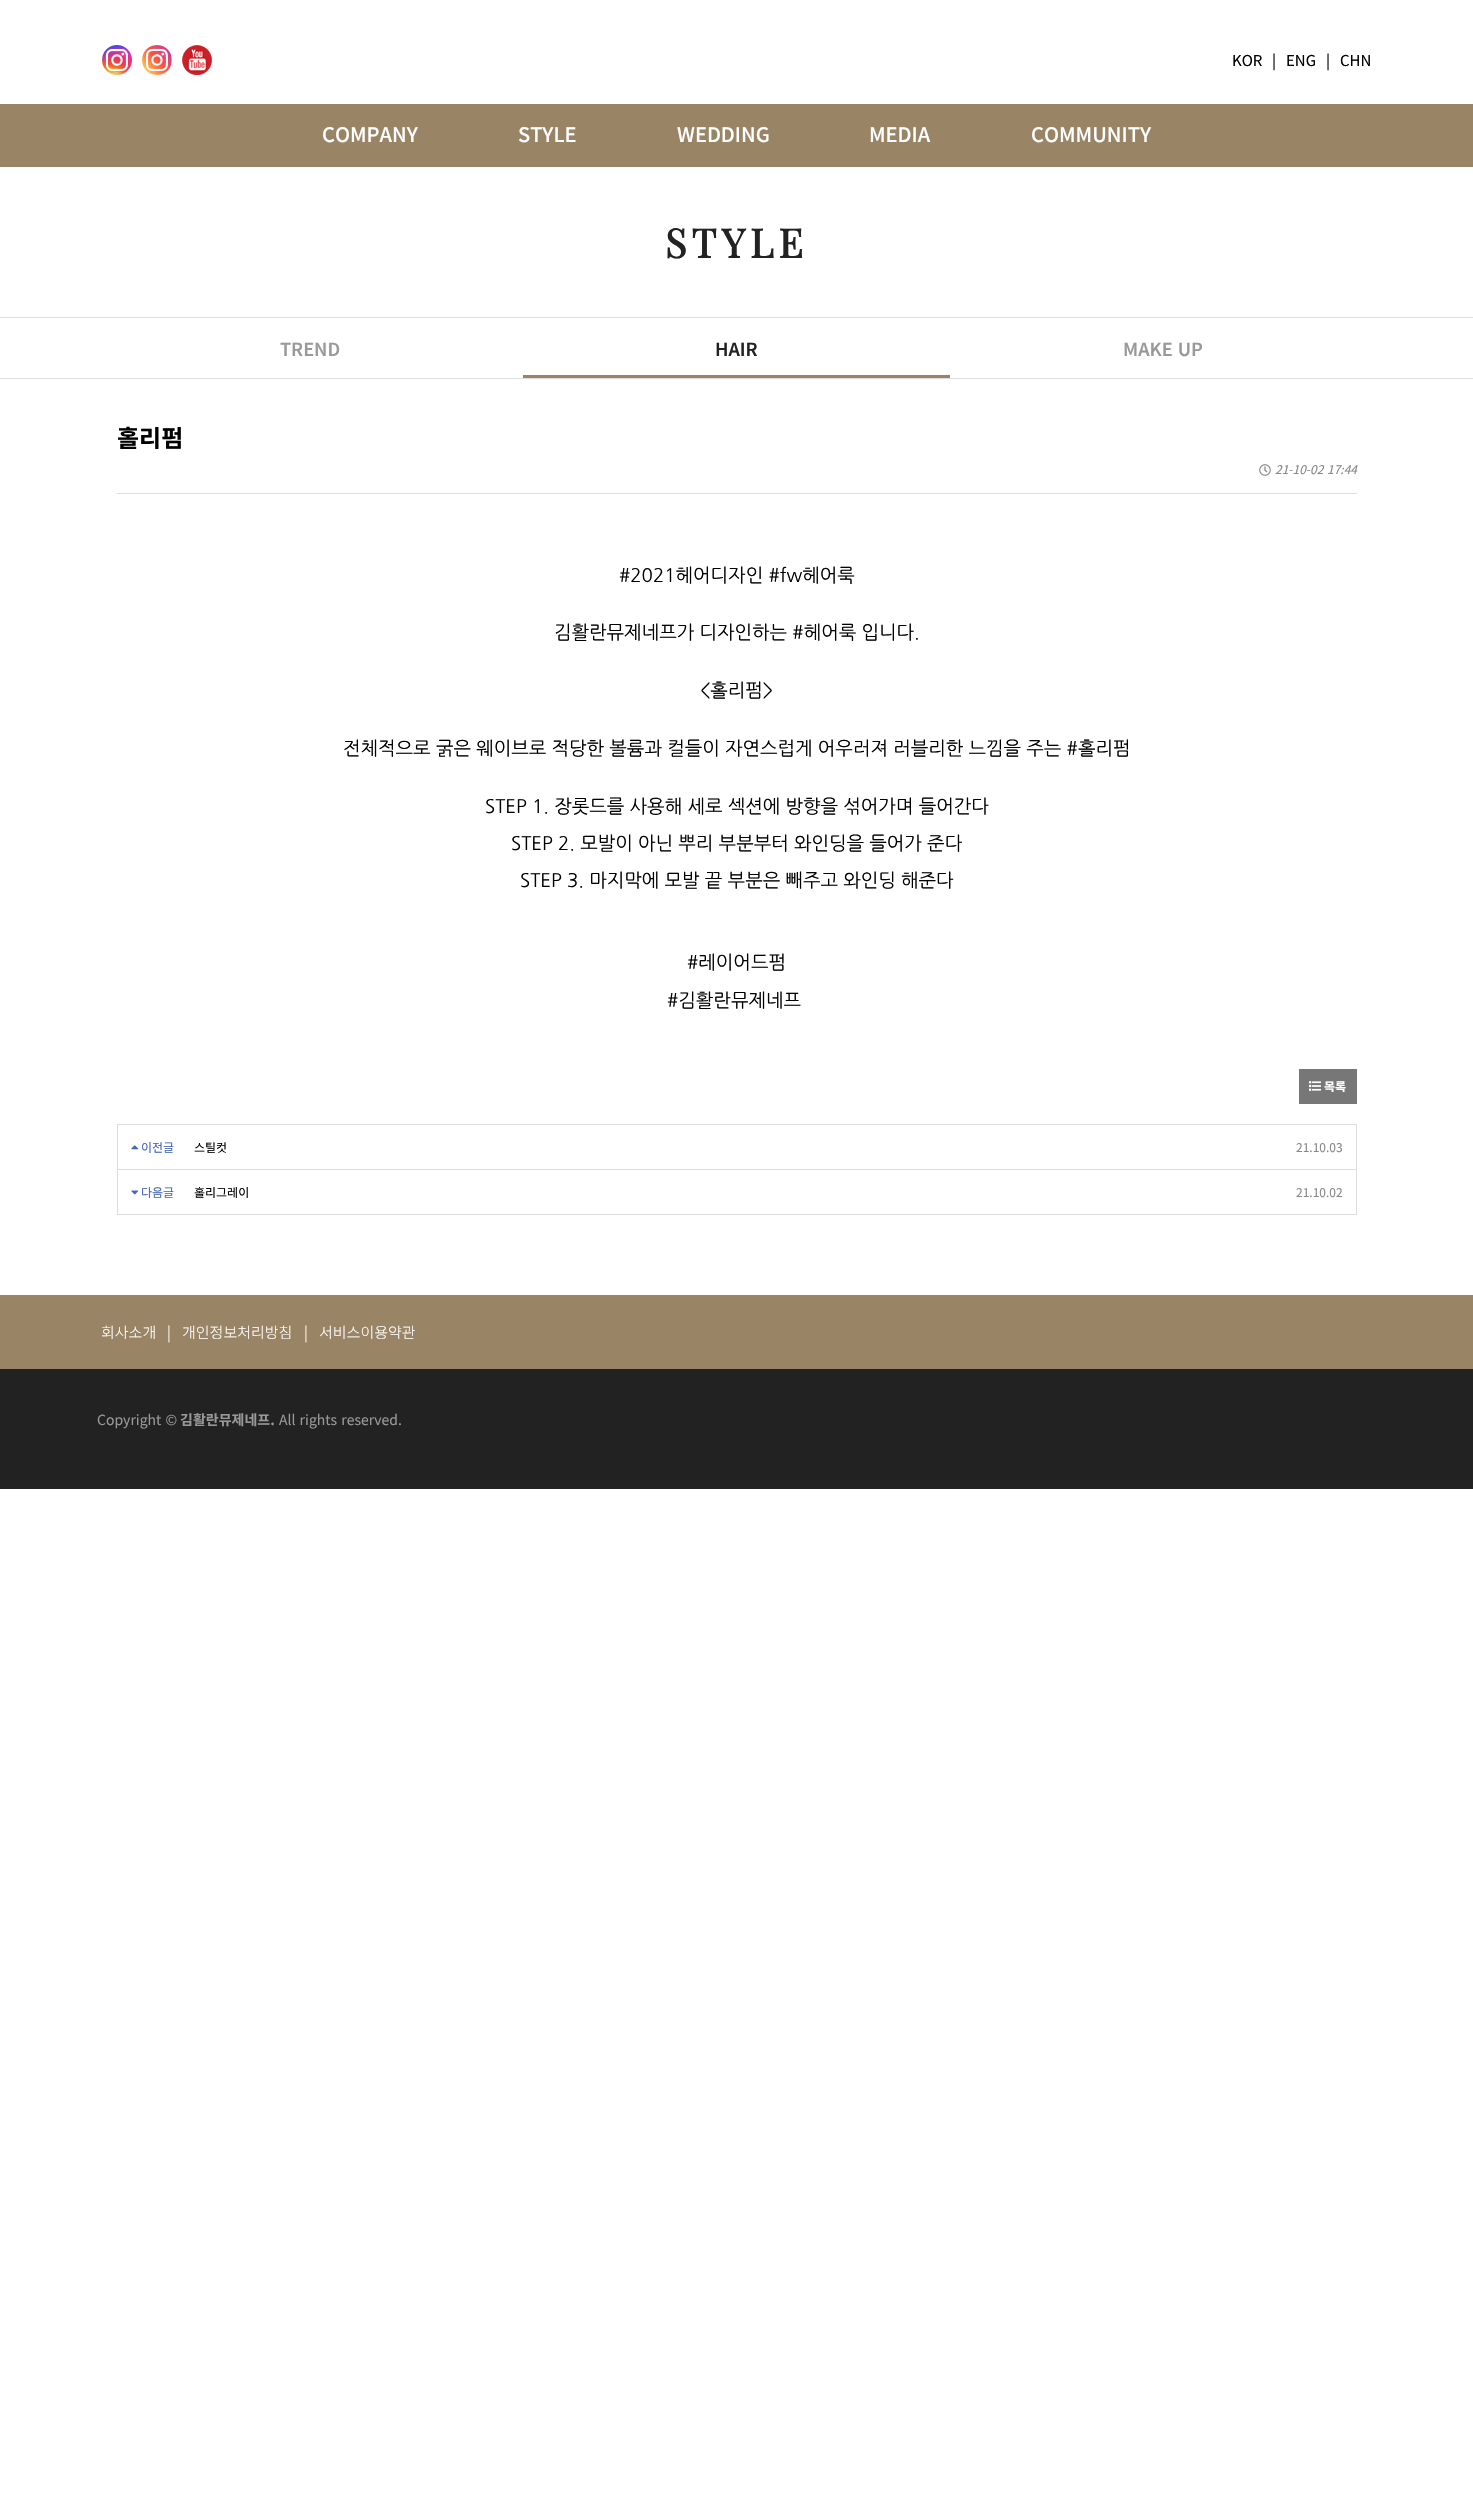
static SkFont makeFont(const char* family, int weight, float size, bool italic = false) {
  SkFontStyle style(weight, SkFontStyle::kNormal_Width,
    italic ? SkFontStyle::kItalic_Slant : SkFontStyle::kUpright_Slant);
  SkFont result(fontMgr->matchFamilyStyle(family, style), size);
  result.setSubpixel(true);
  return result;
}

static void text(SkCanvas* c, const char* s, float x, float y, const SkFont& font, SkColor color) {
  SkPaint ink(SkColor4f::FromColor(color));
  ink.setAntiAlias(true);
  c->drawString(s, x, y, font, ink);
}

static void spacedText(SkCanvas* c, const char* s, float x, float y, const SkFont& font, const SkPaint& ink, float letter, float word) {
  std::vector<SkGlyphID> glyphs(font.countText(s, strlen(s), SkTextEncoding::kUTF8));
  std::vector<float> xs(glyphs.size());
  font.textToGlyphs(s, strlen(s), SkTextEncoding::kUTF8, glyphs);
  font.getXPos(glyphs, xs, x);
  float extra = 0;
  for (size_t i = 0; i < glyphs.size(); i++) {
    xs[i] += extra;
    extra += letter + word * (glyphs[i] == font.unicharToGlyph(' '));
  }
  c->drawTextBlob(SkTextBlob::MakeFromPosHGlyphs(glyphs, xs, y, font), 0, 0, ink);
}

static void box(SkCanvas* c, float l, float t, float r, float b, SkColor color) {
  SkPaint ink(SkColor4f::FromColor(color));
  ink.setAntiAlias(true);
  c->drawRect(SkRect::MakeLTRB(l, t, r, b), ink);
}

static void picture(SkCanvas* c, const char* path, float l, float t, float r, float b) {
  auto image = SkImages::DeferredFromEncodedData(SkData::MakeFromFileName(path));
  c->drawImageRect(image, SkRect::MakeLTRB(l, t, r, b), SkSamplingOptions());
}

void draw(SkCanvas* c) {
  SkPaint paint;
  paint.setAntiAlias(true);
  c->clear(0xffffffff);
  picture(c, "img_01.png", 102, 45, 132, 75);
  picture(c, "img_02.png", 142, 45, 172, 75);
  picture(c, "img_03.png", 182, 45, 212, 75);
  SkFont face1 = makeFont("Noto Sans KR", 400, 15);
  text(c, "KOR", 1232, 66, face1, 0xff000000);
  text(c, "|", 1272, 66, face1, 0xff000000);
  text(c, "ENG", 1286, 66, face1, 0xff000000);
  text(c, "|", 1326, 66, face1, 0xff000000);
  text(c, "CHN", 1340, 66, face1, 0xff000000);
  box(c, 0, 104, 1473, 167, 0xff998465);
  SkFont face2 = makeFont("Noto Sans KR", 500, 20);
  text(c, "COMPANY", 322, 142, face2, 0xffffffff);
  text(c, "STYLE", 518, 142, face2, 0xffffffff);
  text(c, "WEDDING", 677, 142, face2, 0xffffffff);
  text(c, "MEDIA", 869, 142, face2, 0xffffffff);
  text(c, "COMMUNITY", 1031, 142, face2, 0xffffffff);
  SkFont face3 = makeFont("Playfair Display", 700, 40);
  paint.setColor(0xff222222);
  spacedText(c, "STYLE", 665, 258, face3, paint, 5, 0);
  box(c, 0, 317, 1473, 318, 0xffdddddd);
  box(c, 0, 378, 1473, 379, 0xffdddddd);
  SkFont face4 = makeFont("Noto Sans KR", 600, 18);
  text(c, "TREND", 280, 356, face4, 0xff999999);
  text(c, "HAIR", 715, 356, face4, 0xff222222);
  box(c, 523, 375, 950, 378, 0xff998465);
  paint.setColor(0xff999999);
  spacedText(c, "MAKE UP", 1123, 356, face4, paint, 0, 1);
  SkFont face5 = makeFont("Noto Sans KR", 700, 24);
  text(c, "홀리펌", 117, 447, face5, 0xff000000);
  box(c, 117, 493, 1357, 494, 0xffdddddd);
  picture(c, "img_04.png", 1259, 464, 1271, 476);
  SkFont face6 = makeFont("Noto Sans KR", 400, 12, true);
  paint.setColor(0xff888888);
  spacedText(c, "21-10-02 17:44", 1275, 474, face6, paint, 0, 1);
  SkFont face7 = makeFont("NanumGothic", 400, 18.65f);
  text(c, "#2021헤어디자인 #fw헤어룩", 619, 582, face7, 0xff000000);
  text(c, "김활란뮤제네프가 디자인하는 #헤어룩 입니다.", 554, 639, face7, 0xff000000);
  text(c, "<홀리펌>", 700, 697, face7, 0xff000000);
  text(c, "전체적으로 굵은 웨이브로 적당한 볼륨과 컬들이 자연스럽게 어우러져 러블리한 느낌을 주는 #홀리펌", 343, 755, face7, 0xff000000);
  text(c, "STEP 1. 장롯드를 사용해 세로 섹션에 방향을 섞어가며 들어간다", 485, 813, face7, 0xff000000);
  text(c, "STEP 2. 모발이 아닌 뿌리 부분부터 와인딩을 들어가 준다", 511, 850, face7, 0xff000000);
  text(c, "STEP 3. 마지막에 모발 끝 부분은 빼주고 와인딩 해준다", 520, 887, face7, 0xff000000);
  text(c, "#레이어드펌", 687, 969, face7, 0xff000000);
  text(c, "#김활란뮤제네프", 667, 1007, face7, 0xff000000);
  box(c, 1299, 1069, 1357, 1104, 0xff777777);
  picture(c, "img_05.png", 1309, 1081, 1321, 1091);
  SkFont face8 = makeFont("Noto Sans KR", 700, 12);
  text(c, "목록", 1324, 1091, face8, 0xffffffff);
  box(c, 117, 1214, 1357, 1215, 0xffdddddd);
  box(c, 117, 1124, 1357, 1125, 0xffdddddd);
  box(c, 1356, 1124, 1357, 1169, 0xffdddddd);
  box(c, 117, 1124, 118, 1169, 0xffdddddd);
  picture(c, "img_06.png", 131, 1145, 139, 1150);
  SkFont face9 = makeFont("Noto Sans KR", 400, 12);
  text(c, "이전글", 141, 1152, face9, 0xff4567b5);
  text(c, "스틸컷", 194, 1152, face9, 0xff000000);
  text(c, "21.10.03", 1296, 1152, face9, 0xff888888);
  box(c, 117, 1169, 1357, 1170, 0xffdddddd);
  box(c, 1356, 1169, 1357, 1214, 0xffdddddd);
  box(c, 117, 1169, 118, 1214, 0xffdddddd);
  picture(c, "img_07.png", 131, 1190, 139, 1195);
  text(c, "다음글", 141, 1197, face9, 0xff4567b5);
  text(c, "홀리그레이", 194, 1197, face9, 0xff000000);
  text(c, "21.10.02", 1296, 1197, face9, 0xff888888);
  box(c, 0, 1295, 1473, 1369, 0xff998465);
  SkFont face10 = makeFont("Noto Sans KR", 300, 15);
  text(c, "회사소개", 101, 1338, face10, 0xffffffff);
  text(c, "|", 167, 1338, face10, 0xffffffff);
  text(c, "개인정보처리방침", 182, 1338, face10, 0xffffffff);
  text(c, "|", 304, 1338, face10, 0xffffffff);
  text(c, "서비스이용약관", 319, 1338, face10, 0xffffffff);
  box(c, 0, 1369, 1473, 1489, 0xff222222);
  SkFont face11 = makeFont("Noto Sans KR", 400, 14);
  paint.setColor(0xff999999);
  spacedText(c, "Copyright ©", 97, 1425, face11, paint, 0, 1);
  SkFont face12 = makeFont("Noto Sans KR", 700, 14);
  text(c, "김활란뮤제네프.", 180, 1425, face12, 0xff999999);
  spacedText(c, "All rights reserved.", 279, 1425, face11, paint, 0, 1);
}
